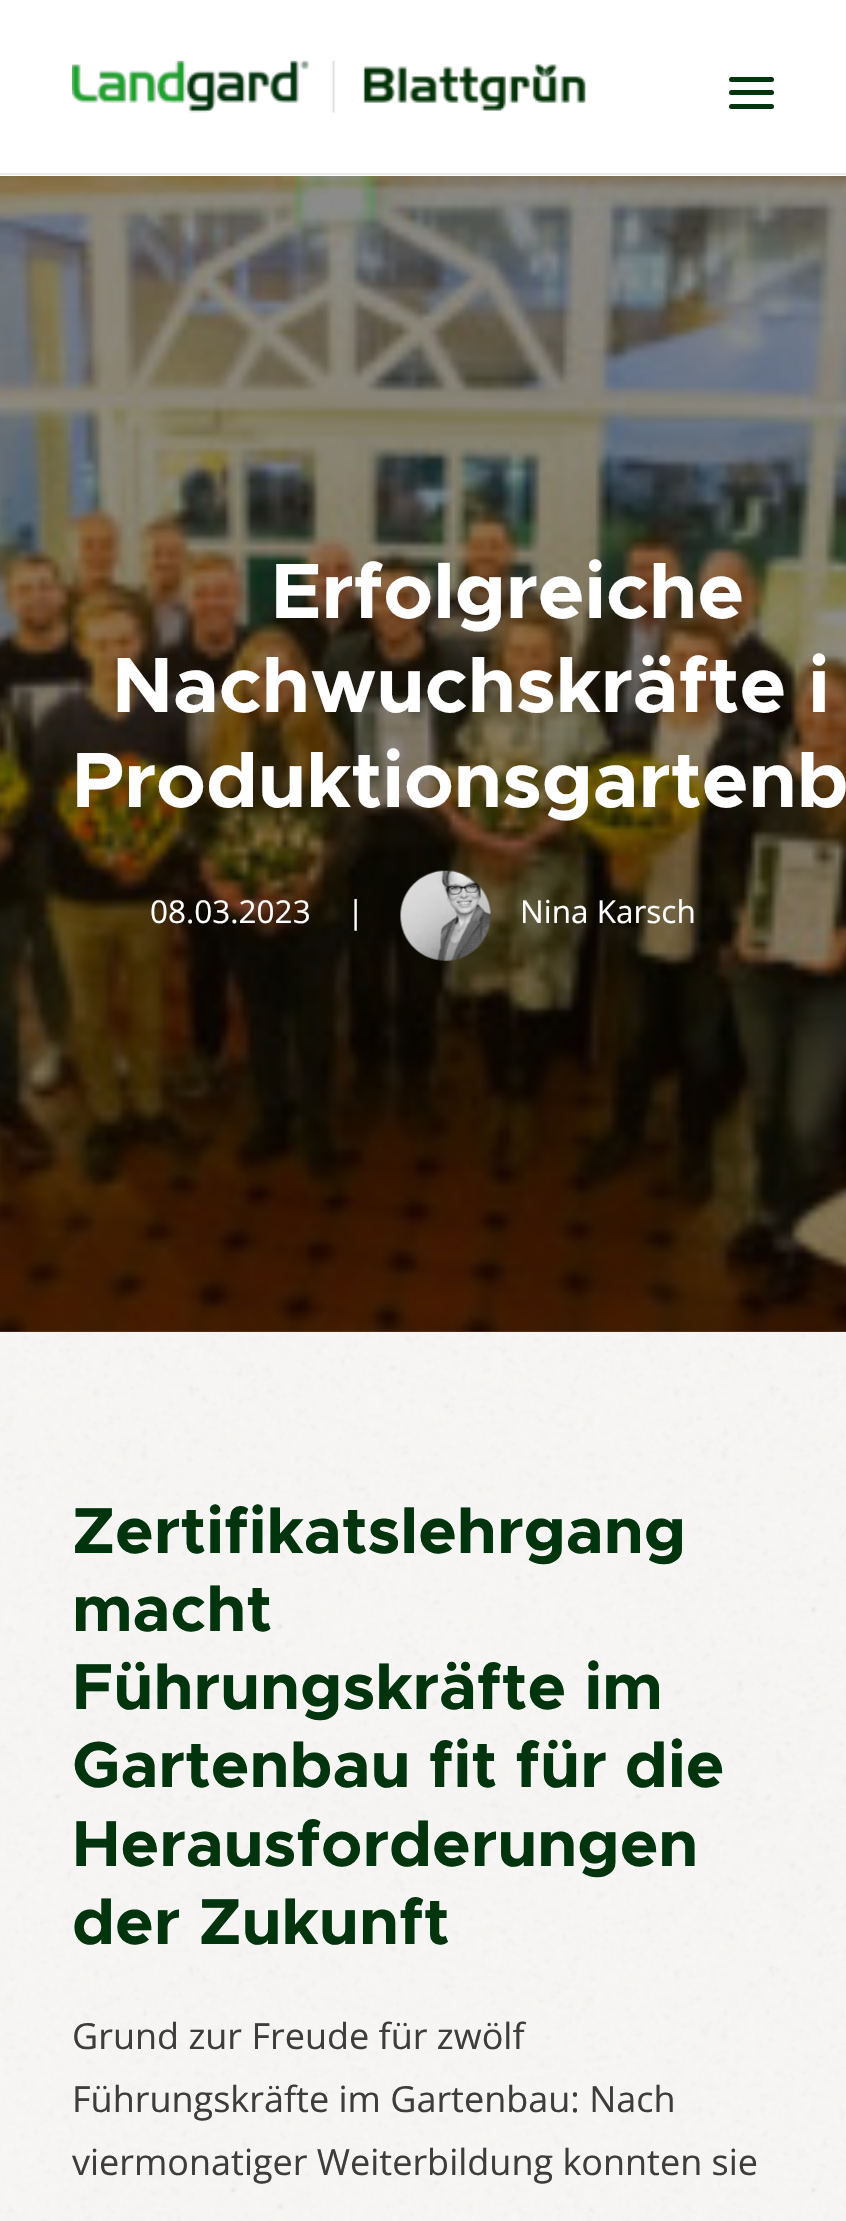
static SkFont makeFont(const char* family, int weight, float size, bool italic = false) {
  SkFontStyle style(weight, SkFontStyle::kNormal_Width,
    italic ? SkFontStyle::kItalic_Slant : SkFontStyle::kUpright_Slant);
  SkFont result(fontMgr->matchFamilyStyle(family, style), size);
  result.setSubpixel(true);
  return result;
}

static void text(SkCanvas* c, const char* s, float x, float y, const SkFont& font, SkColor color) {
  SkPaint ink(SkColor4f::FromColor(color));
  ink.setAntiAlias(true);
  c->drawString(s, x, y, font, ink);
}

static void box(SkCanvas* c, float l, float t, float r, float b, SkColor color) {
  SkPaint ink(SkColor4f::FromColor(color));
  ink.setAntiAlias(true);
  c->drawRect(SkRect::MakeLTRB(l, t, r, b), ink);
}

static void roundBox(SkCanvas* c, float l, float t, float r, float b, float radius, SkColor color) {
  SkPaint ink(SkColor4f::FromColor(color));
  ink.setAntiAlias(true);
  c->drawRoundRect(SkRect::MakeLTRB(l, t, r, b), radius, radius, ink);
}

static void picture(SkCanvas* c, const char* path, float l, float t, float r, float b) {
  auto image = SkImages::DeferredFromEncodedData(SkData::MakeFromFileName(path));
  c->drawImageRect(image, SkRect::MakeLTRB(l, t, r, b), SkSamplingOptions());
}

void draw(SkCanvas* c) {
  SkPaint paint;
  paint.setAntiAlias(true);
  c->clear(0xffffffff);
  picture(c, "img_01.png", 0, 1331, 846, 2221);
  box(c, 0, 173, 846, 175, 0xffeaeaea);
  picture(c, "img_02.png", 72, 60, 586, 113);
  roundBox(c, 729, 90, 774, 95, 2.5f, 0xff00340d);
  roundBox(c, 729, 77, 774, 82, 2.5f, 0xff00340d);
  roundBox(c, 729, 104, 774, 109, 2.5f, 0xff00340d);
  picture(c, "img_03.png", 0, 176, 846, 1332);
  box(c, 0, 176, 846, 1332, 0x73000000);
  SkFont face1 = makeFont("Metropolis", 700, 78.75f);
  text(c, "Erfolgreiche", 271, 618, face1, 0xffffffff);
  text(c, "Nachwuchskräfte i", 112, 712, face1, 0xffffffff);
  text(c, "Produktionsgartenb", 72, 807, face1, 0xffffffff);
  SkFont face2 = makeFont("Open Sans", 400, 31.5f);
  text(c, "08.03.2023", 150, 923, face2, 0xffffffff);
  text(c, "|", 347, 923, face2, 0xffffffff);
  picture(c, "img_04.png", 400, 870, 491, 961);
  text(c, "Nina Karsch", 520, 923, face2, 0xffffffff);
  SkFont face3 = makeFont("Metropolis", 700, 65.25f);
  text(c, "Zertifikatslehrgang", 72, 1553, face3, 0xff00340d);
  text(c, "macht", 72, 1631, face3, 0xff00340d);
  text(c, "Führungskräfte im", 72, 1709, face3, 0xff00340d);
  text(c, "Gartenbau fit für die", 72, 1787, face3, 0xff00340d);
  text(c, "Herausforderungen", 72, 1866, face3, 0xff00340d);
  text(c, "der Zukunft", 72, 1944, face3, 0xff00340d);
  SkFont face4 = makeFont("Open Sans", 400, 36);
  text(c, "Grund zur Freude für zwölf", 72, 2049, face4, 0xff3f3c3c);
  text(c, "Führungskräfte im Gartenbau: Nach", 72, 2112, face4, 0xff3f3c3c);
  text(c, "viermonatiger Weiterbildung konnten sie", 72, 2175, face4, 0xff3f3c3c);
}
